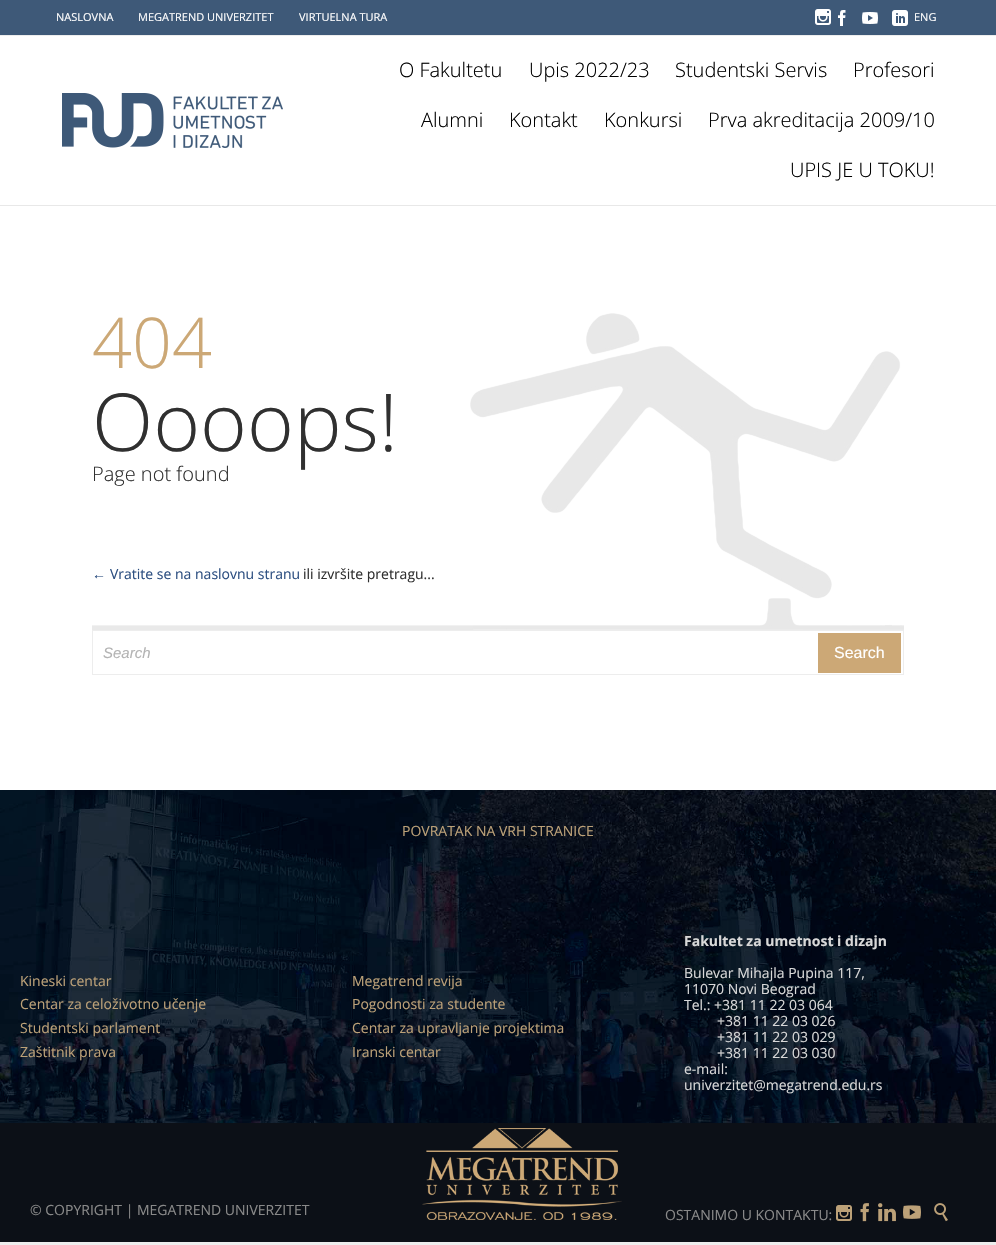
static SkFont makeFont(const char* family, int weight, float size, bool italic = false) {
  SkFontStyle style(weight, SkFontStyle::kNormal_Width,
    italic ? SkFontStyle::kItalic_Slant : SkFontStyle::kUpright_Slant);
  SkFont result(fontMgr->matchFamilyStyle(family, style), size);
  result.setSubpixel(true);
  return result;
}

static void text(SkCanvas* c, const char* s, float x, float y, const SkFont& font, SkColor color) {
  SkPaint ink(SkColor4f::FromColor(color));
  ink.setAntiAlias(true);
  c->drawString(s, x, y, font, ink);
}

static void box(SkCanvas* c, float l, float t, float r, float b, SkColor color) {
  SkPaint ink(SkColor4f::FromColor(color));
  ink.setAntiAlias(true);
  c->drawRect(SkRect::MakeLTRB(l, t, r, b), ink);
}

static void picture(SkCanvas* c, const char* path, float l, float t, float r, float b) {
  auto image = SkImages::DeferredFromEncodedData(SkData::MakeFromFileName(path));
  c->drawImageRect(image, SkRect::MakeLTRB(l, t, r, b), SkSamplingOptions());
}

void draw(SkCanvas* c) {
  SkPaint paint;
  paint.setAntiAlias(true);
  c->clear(0xffededed);
  box(c, 0, 36, 996, 205, 0xffffffff);
  box(c, 0, 205, 996, 206, 0xffe8e8e8);
  box(c, 0, 0, 996, 35, 0xff3e5978);
  SkFont face1 = makeFont("Open Sans", 400, 11);
  text(c, "NASLOVNA", 56, 21, face1, 0xffffffff);
  text(c, "MEGATREND UNIVERZITET", 138, 21, face1, 0xffffffff);
  text(c, "VIRTUELNA TURA", 299, 21, face1, 0xffffffff);
  picture(c, "img_01.png", 815, 9, 831, 25);
  picture(c, "img_02.png", 838, 10, 846, 26);
  picture(c, "img_03.png", 862, 12, 878, 24);
  picture(c, "img_04.png", 892, 10, 908, 26);
  text(c, "ENG", 914, 21, face1, 0xffffffff);
  picture(c, "img_05.png", 62, 93, 283, 148);
  SkFont face2 = makeFont("Open Sans", 300, 20);
  text(c, "O Fakultetu", 399, 77, face2, 0xff000000);
  text(c, "Upis 2022/23", 529, 77, face2, 0xff000000);
  text(c, "Studentski Servis", 675, 77, face2, 0xff000000);
  text(c, "Profesori", 853, 77, face2, 0xff000000);
  text(c, "Alumni", 421, 127, face2, 0xff000000);
  text(c, "Kontakt", 509, 127, face2, 0xff000000);
  text(c, "Konkursi", 604, 127, face2, 0xff000000);
  text(c, "Prva akreditacija 2009/10", 708, 127, face2, 0xff000000);
  text(c, "UPIS JE U TOKU!", 790, 177, face2, 0xff000000);
  box(c, 0, 206, 996, 790, 0xffffffff);
  picture(c, "img_06.png", 92, 313, 904, 630);
  SkFont face3 = makeFont("Open Sans", 300, 70);
  text(c, "404", 92, 368, face3, 0xffcca876);
  SkFont face4 = makeFont("Open Sans", 300, 80);
  text(c, "Oooops!", 92, 451, face4, 0xff303030);
  text(c, "Page not found", 92, 481, face2, 0xff303030);
  SkFont face5 = makeFont("Liberation Serif", 400, 14);
  text(c, "←", 92, 579, face5, 0xff2d4f81);
  SkFont face6 = makeFont("Open Sans", 400, 14);
  text(c, "Vratite se na naslovnu stranu", 110, 579, face6, 0xff2d4f81);
  text(c, "ili izvršite pretragu...", 303, 579, face6, 0xff303030);
  paint.setStyle(SkPaint::kStroke_Style);
  paint.setStrokeWidth(1);
  paint.setColor(0xffededed);
  c->drawRect(SkRect::MakeLTRB(92.5f, 630.5f, 903.5f, 674.5f), paint);
  SkFont face7 = makeFont("Liberation Sans", 400, 15, true);
  text(c, "Search", 103, 658, face7, 0xffb3b3b3);
  box(c, 818, 633, 901, 673, 0xffcca876);
  SkFont face8 = makeFont("Liberation Sans", 400, 16);
  text(c, "Search", 834, 658, face8, 0xffffffff);
  picture(c, "img_07.png", 0, 790, 996, 1123);
  text(c, "POVRATAK NA VRH STRANICE", 402, 836, face6, 0xffbca178);
  text(c, "Kineski centar", 20, 986, face6, 0xffbca178);
  text(c, "Centar za celoživotno učenje", 20, 1009, face6, 0xffbca178);
  text(c, "Studentski parlament", 20, 1033, face6, 0xffbca178);
  text(c, "Zaštitnik prava", 20, 1057, face6, 0xffbca178);
  text(c, "Megatrend revija", 352, 986, face6, 0xffbca178);
  text(c, "Pogodnosti za studente", 352, 1009, face6, 0xffbca178);
  text(c, "Centar za upravljanje projektima", 352, 1033, face6, 0xffbca178);
  text(c, "Iranski centar", 352, 1057, face6, 0xffbca178);
  SkFont face9 = makeFont("Open Sans", 700, 14);
  text(c, "Fakultet za umetnost i dizajn", 684, 946, face9, 0xffd8d8d8);
  text(c, "Bulevar Mihajla Pupina 117,", 684, 978, face6, 0xffd8d8d8);
  text(c, "11070 Novi Beograd", 684, 994, face6, 0xffd8d8d8);
  text(c, "Tel.: +381 11 22 03 064", 684, 1010, face6, 0xffd8d8d8);
  text(c, "+381 11 22 03 026", 717, 1026, face6, 0xffd8d8d8);
  text(c, "+381 11 22 03 029", 717, 1042, face6, 0xffd8d8d8);
  text(c, "+381 11 22 03 030", 717, 1058, face6, 0xffd8d8d8);
  text(c, "e-mail:", 684, 1074, face6, 0xffd8d8d8);
  text(c, "univerzitet@megatrend.edu.rs", 684, 1090, face6, 0xffd8d8d8);
  box(c, 0, 1123, 996, 1242, 0xff0c1017);
  text(c, "© COPYRIGHT | MEGATREND UNIVERZITET", 30, 1215, face6, 0xff898989);
  picture(c, "img_08.png", 422, 1128, 622, 1220);
  text(c, "OSTANIMO U KONTAKTU:", 665, 1220, face6, 0xff898989);
  picture(c, "img_09.png", 836, 1205, 852, 1221);
  picture(c, "img_10.png", 860, 1203, 869, 1222);
  picture(c, "img_11.png", 878, 1203, 896, 1222);
  picture(c, "img_12.png", 903, 1205, 921, 1219);
  picture(c, "img_13.png", 934, 1203, 948, 1222);
}
